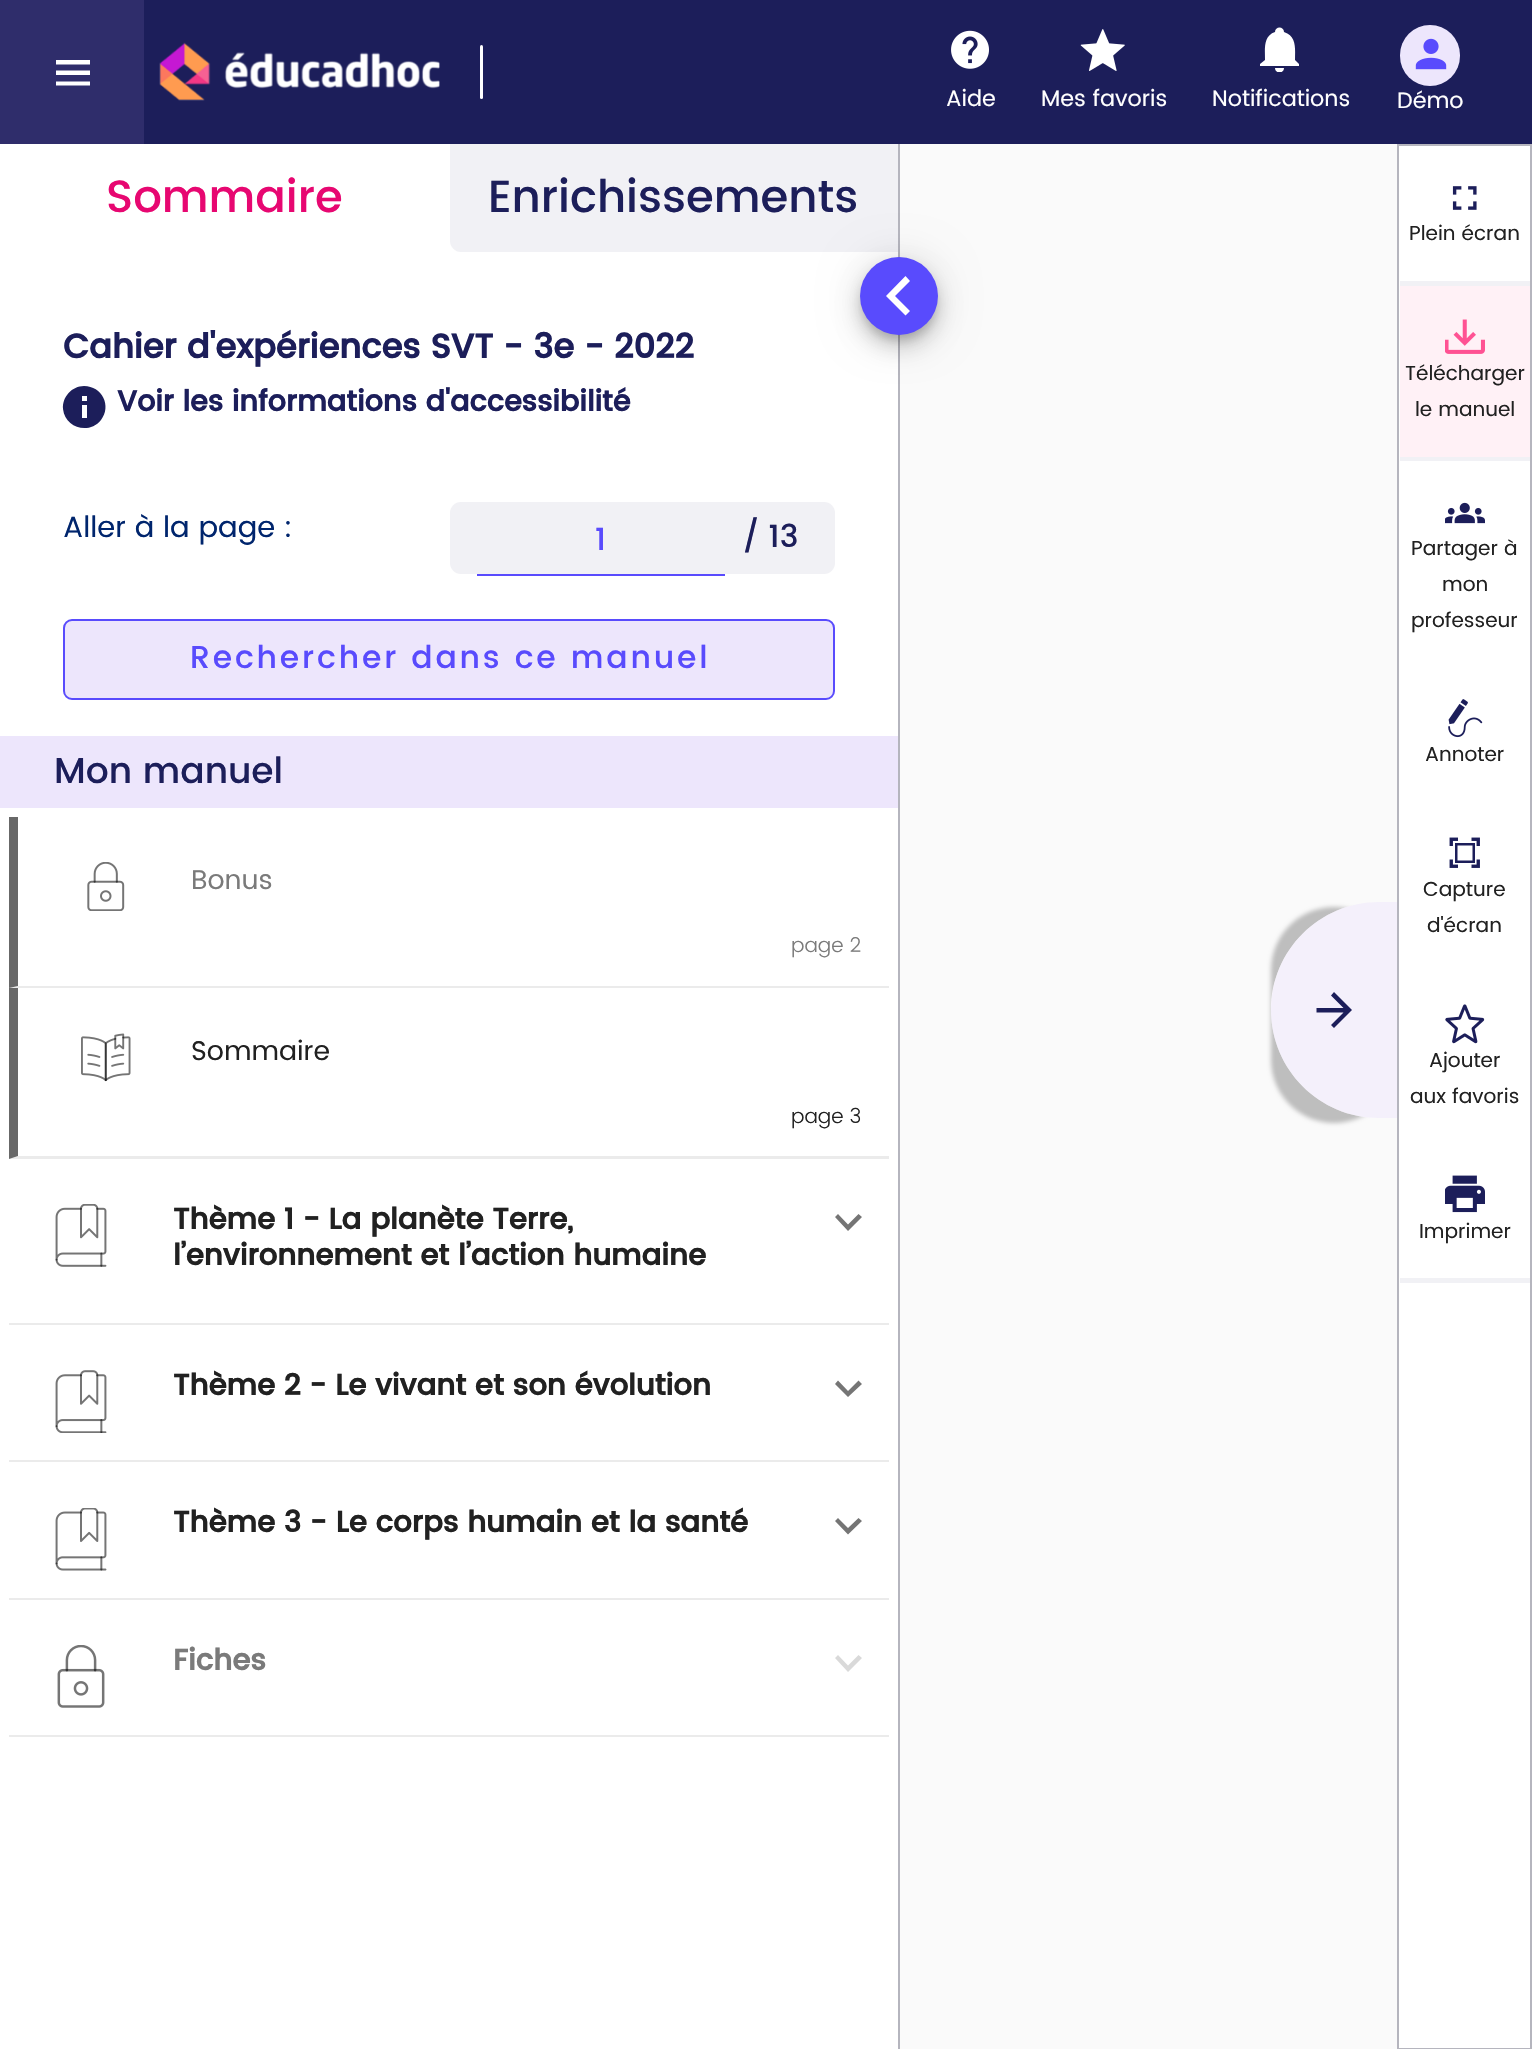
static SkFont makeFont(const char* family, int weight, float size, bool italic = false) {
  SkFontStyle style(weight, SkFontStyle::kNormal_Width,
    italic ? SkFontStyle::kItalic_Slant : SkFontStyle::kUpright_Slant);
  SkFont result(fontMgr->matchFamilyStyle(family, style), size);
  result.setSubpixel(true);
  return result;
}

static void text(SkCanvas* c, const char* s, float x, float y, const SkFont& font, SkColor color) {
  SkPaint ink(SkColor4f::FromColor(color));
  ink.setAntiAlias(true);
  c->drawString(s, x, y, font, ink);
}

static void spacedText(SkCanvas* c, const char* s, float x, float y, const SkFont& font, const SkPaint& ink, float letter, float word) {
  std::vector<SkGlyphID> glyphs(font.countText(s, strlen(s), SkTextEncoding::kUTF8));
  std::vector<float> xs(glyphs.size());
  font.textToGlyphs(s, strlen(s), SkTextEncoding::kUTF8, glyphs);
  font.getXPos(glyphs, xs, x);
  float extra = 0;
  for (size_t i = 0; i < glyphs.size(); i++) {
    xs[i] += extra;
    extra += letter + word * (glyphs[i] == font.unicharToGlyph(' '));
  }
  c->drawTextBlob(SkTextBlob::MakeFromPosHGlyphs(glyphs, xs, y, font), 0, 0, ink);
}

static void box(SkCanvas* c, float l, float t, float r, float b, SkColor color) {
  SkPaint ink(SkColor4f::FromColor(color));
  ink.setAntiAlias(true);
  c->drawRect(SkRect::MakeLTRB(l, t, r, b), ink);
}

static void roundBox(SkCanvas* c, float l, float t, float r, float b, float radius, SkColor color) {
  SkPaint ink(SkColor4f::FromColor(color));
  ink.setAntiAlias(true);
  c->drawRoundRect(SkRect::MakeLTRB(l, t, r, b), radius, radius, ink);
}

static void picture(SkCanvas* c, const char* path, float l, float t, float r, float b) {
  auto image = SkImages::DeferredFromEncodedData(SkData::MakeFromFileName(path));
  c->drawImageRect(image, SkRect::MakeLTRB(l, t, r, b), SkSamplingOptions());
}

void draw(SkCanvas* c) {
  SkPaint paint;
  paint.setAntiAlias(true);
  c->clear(0xfffafafa);
  box(c, 144, 0, 1532, 144, 0xff1c1e5a);
  box(c, 0, 0, 144, 144, 0xff2f2d6b);
  paint.setColor(0xffffffff);
  c->drawPath(SkPathBuilder().moveTo(56, 75).lineTo(56, 70.5f).lineTo(90, 70.5f).lineTo(90, 75).close().moveTo(56, 85.5f).lineTo(56, 81.5f).lineTo(90, 81.5f).lineTo(90, 85.5f).close().moveTo(56, 64.5f).lineTo(56, 60).lineTo(90, 60).lineTo(90, 64.5f).close().detach(), paint);
  picture(c, "img_01.png", 159, 42, 440, 101);
  roundBox(c, 480, 45, 483, 99, 1.5f, 0xffffffff);
  picture(c, "img_02.png", 951, 30, 989, 69);
  SkFont face1 = makeFont("Poppins", 400, 22.5f);
  text(c, "Aide", 946, 106, face1, 0xffffffff);
  picture(c, "img_03.png", 1080, 29, 1125, 71);
  text(c, "Mes favoris", 1041, 106, face1, 0xffffffff);
  c->save();
  c->clipRect(SkRect::MakeLTRB(1258, 27, 1305, 72));
  c->drawPath(SkPathBuilder().moveTo(1299, 64).lineTo(1299, 66).lineTo(1260, 66).lineTo(1260, 64).lineTo(1265, 60).cubicTo(1265, 49, 1263, 36, 1275, 32).cubicTo(1275, 26, 1284, 26, 1284, 32).cubicTo(1297, 36, 1295, 49, 1295, 60).close().moveTo(1284, 68).cubicTo(1284, 74, 1275, 74, 1275, 68).detach(), paint);
  c->restore();
  text(c, "Notifications", 1212, 106, face1, 0xffffffff);
  roundBox(c, 1400, 25, 1460, 86, 30, 0xffede6fc);
  picture(c, "img_04.png", 1415, 38, 1447, 70);
  text(c, "Démo", 1397, 108, face1, 0xffffffff);
  box(c, 0, 144, 898, 2049, 0xffffffff);
  box(c, 898, 144, 900, 2049, 0xffb5b5be);
  SkFont face2 = makeFont("Poppins", 500, 45);
  text(c, "Sommaire", 106, 212, face2, 0xffe70771);
  paint.setColor(0xfff1f1f5);
  c->drawPath(SkPathBuilder().moveTo(450, 144).lineTo(898, 144).lineTo(898, 252).lineTo(461, 252).cubicTo(455, 252, 450, 247, 450, 241).close().detach(), paint);
  text(c, "Enrichissements", 488, 212, face2, 0xff1c1e5a);
  SkFont face3 = makeFont("Poppins", 700, 33.75f);
  text(c, "Cahier d'expériences SVT - 3e - 2022", 63, 358, face3, 0xff1c1e5a);
  paint.setColor(0xff1c1e5a);
  c->drawPath(SkPathBuilder().moveTo(87, 401).lineTo(82, 401).lineTo(82, 396).lineTo(87, 396).close().moveTo(87, 418).lineTo(82, 418).lineTo(82, 405).lineTo(87, 405).close().moveTo(84, 386).cubicTo(72, 386, 62, 397, 63, 409).cubicTo(65, 428, 89, 435, 101, 420).cubicTo(112, 406, 102, 386, 84, 386).close().detach(), paint);
  SkFont face4 = makeFont("Poppins", 700, 28.75f);
  text(c, "Voir les informations d'accessibilité", 117, 411, face4, 0xff1c1e5a);
  SkFont face5 = makeFont("Poppins", 400, 29.25f);
  text(c, "Aller à la page :", 63, 537, face5, 0xff00256d);
  roundBox(c, 450, 502, 835, 574, 11, 0xfff1f1f5);
  SkFont face6 = makeFont("Poppins", 500, 31.5f);
  text(c, "1", 595, 550, face6, 0xff594bfd);
  box(c, 477, 574, 725, 576, 0xff594bfd);
  text(c, "/ 13", 743, 547, face6, 0xff1c1e5a);
  paint.setColor(0xffede6fc);
  c->drawRoundRect(SkRect::MakeLTRB(64, 620, 834, 699), 8, 8, paint);
  paint.setStyle(SkPaint::kStroke_Style);
  paint.setStrokeWidth(2);
  paint.setColor(0xff594bfd);
  c->drawRoundRect(SkRect::MakeLTRB(64, 620, 834, 699), 8, 8, paint);
  paint.setStyle(SkPaint::kFill_Style);
  spacedText(c, "Rechercher dans ce manuel", 190, 668, face6, paint, 2.8f, 0);
  box(c, 0, 736, 898, 808, 0xffede6fc);
  SkFont face7 = makeFont("Poppins", 500, 36);
  text(c, "Mon manuel", 54, 783, face7, 0xff1c1e5a);
  paint.setColor(0xffebebeb);
  c->drawPath(SkPathBuilder().moveTo(889, 988).lineTo(9, 988).lineTo(18, 986).lineTo(889, 986).close().detach(), paint);
  paint.setColor(0xff686868);
  c->drawPath(SkPathBuilder().moveTo(9, 988).lineTo(9, 817).lineTo(18, 817).lineTo(18, 986).close().detach(), paint);
  picture(c, "img_05.png", 87, 862, 125, 911);
  SkFont face8 = makeFont("Poppins", 400, 27);
  text(c, "Bonus", 191, 889, face8, 0xff7a7a7a);
  SkFont face9 = makeFont("Poppins", 300, 20.25f);
  text(c, "page 2", 791, 952, face9, 0xff7a7a7a);
  paint.setColor(0xffebebeb);
  c->drawPath(SkPathBuilder().moveTo(889, 1159).lineTo(9, 1159).lineTo(18, 1156).lineTo(889, 1156).close().detach(), paint);
  paint.setColor(0xff686868);
  c->drawPath(SkPathBuilder().moveTo(9, 1159).lineTo(9, 988).lineTo(18, 988).lineTo(18, 1156).close().detach(), paint);
  picture(c, "img_06.png", 81, 1033, 131, 1082);
  text(c, "Sommaire", 191, 1060, face8, 0xff212121);
  text(c, "page 3", 791, 1123, face9, 0xff212121);
  box(c, 9, 1323, 889, 1325, 0xffebebeb);
  picture(c, "img_07.png", 55, 1204, 107, 1267);
  SkFont face10 = makeFont("Poppins", 700, 29.25f);
  text(c, "Thème 1 - La planète Terre,", 173, 1229, face10, 0xff212121);
  text(c, "l’environnement et l’action humaine", 173, 1265, face10, 0xff212121);
  paint.setColor(0xff757575);
  c->drawPath(SkPathBuilder().moveTo(838, 1214).lineTo(848, 1224.5f).lineTo(858.5f, 1214).lineTo(862, 1217).lineTo(848, 1231).lineTo(835, 1217).close().detach(), paint);
  box(c, 9, 1460, 889, 1462, 0xffebebeb);
  picture(c, "img_08.png", 55, 1370, 107, 1433);
  text(c, "Thème 2 - Le vivant et son évolution", 173, 1395, face10, 0xff212121);
  c->drawPath(SkPathBuilder().moveTo(838, 1380.5f).lineTo(848, 1391).lineTo(858.5f, 1380.5f).lineTo(862, 1384).lineTo(848, 1397).lineTo(835, 1384).close().detach(), paint);
  box(c, 9, 1598, 889, 1600, 0xffebebeb);
  picture(c, "img_09.png", 55, 1508, 107, 1571);
  text(c, "Thème 3 - Le corps humain et la santé", 173, 1532, face10, 0xff212121);
  c->drawPath(SkPathBuilder().moveTo(838, 1518).lineTo(848, 1528).lineTo(858.5f, 1518).lineTo(862, 1521).lineTo(848, 1534.5f).lineTo(835, 1521).close().detach(), paint);
  box(c, 9, 1735, 889, 1737, 0xffebebeb);
  picture(c, "img_10.png", 57, 1645, 105, 1708);
  text(c, "Fiches", 173, 1670, face10, 0xff7a7a7a);
  paint.setColor(0xffacacac);
  c->drawPath(SkPathBuilder().moveTo(838, 1655).lineTo(848, 1665.5f).lineTo(858.5f, 1655).lineTo(862, 1658).lineTo(848, 1672).lineTo(835, 1658).close().detach(), paint);
  paint.setColor(0x8affffff);
  c->drawCircle(848, 1663, 36, paint);
  paint.setColor(0x1f000000);
  paint.setMaskFilter(SkMaskFilter::MakeBlur(kNormal_SkBlurStyle, 20));
  c->drawRoundRect(SkRect::MakeLTRB(860, 259, 938, 338), 39, 39, paint);
  paint.setMaskFilter(nullptr);
  paint.setColor(0x24000000);
  paint.setMaskFilter(SkMaskFilter::MakeBlur(kNormal_SkBlurStyle, 11));
  c->drawRoundRect(SkRect::MakeLTRB(860, 270, 938, 349), 39, 39, paint);
  paint.setMaskFilter(nullptr);
  paint.setColor(0x33000000);
  paint.setMaskFilter(SkMaskFilter::MakeBlur(kNormal_SkBlurStyle, 5.5f));
  c->drawRoundRect(SkRect::MakeLTRB(862, 266, 936, 340), 37, 37, paint);
  paint.setMaskFilter(nullptr);
  paint.setColor(0xff594bfd);
  c->drawCircle(899, 296, 39, paint);
  paint.setColor(0xffffffff);
  c->drawPath(SkPathBuilder().moveTo(910, 311).lineTo(895, 296).lineTo(910, 281).lineTo(905.5f, 276).lineTo(886, 296).lineTo(905.5f, 315.5f).close().detach(), paint);
  c->save();
  c->clipPath(SkPathBuilder(SkPathFillType::kEvenOdd).moveTo(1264, 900).lineTo(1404, 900).lineTo(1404, 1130).lineTo(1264, 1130).close().moveTo(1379, 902).lineTo(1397, 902).lineTo(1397, 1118).lineTo(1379, 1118).cubicTo(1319.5f, 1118, 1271, 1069.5f, 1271, 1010).cubicTo(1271, 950.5f, 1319.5f, 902, 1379, 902).close().detach(), true);
  paint.setColor(0x3d000000);
  paint.setMaskFilter(SkMaskFilter::MakeBlur(kNormal_SkBlurStyle, 2));
  c->drawRoundRect(SkRect::MakeLTRB(1271, 907, 1397, 1123), 108, 108, paint);
  paint.setMaskFilter(nullptr);
  c->restore();
  paint.setColor(0x80ede6fc);
  c->drawPath(SkPathBuilder().moveTo(1379, 902).lineTo(1397, 902).lineTo(1397, 1118).lineTo(1379, 1118).cubicTo(1319.5f, 1118, 1271, 1069.5f, 1271, 1010).cubicTo(1271, 950.5f, 1319.5f, 902, 1379, 902).close().detach(), paint);
  paint.setColor(0xff1c1e5a);
  c->drawPath(SkPathBuilder().moveTo(1316.5f, 1012.5f).lineTo(1343.5f, 1012.5f).lineTo(1331, 1025).lineTo(1334, 1028).lineTo(1352, 1010).lineTo(1334, 992).lineTo(1331, 995.5f).lineTo(1343.5f, 1008).lineTo(1316.5f, 1008).close().detach(), paint);
  paint.setColor(0xffffffff);
  c->drawRect(SkRect::MakeLTRB(1398, 145, 1531, 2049), paint);
  paint.setStyle(SkPaint::kStroke_Style);
  paint.setColor(0xffb5b5be);
  c->drawRect(SkRect::MakeLTRB(1398, 145, 1531, 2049), paint);
  box(c, 1400, 281, 1530, 286, 0xfff1f1f5);
  picture(c, "img_11.png", 1452, 186, 1477, 210);
  SkFont face11 = makeFont("Poppins", 400, 20.25f);
  text(c, "Plein écran", 1409, 240, face11, 0xff212121);
  box(c, 1400, 457, 1530, 461, 0xfff1f1f5);
  box(c, 1400, 286, 1530, 457, 0xfffff1f6);
  picture(c, "img_12.png", 1445, 319, 1485, 354);
  text(c, "Télécharger", 1405, 380, face11, 0xff212121);
  text(c, "le manuel", 1415, 416, face11, 0xff212121);
  box(c, 1400, 1278, 1530, 1283, 0xfff1f1f5);
  picture(c, "img_13.png", 1445, 502, 1485, 524);
  text(c, "Partager à", 1411, 555, face11, 0xff212121);
  text(c, "mon", 1442, 591, face11, 0xff212121);
  text(c, "professeur", 1411, 627, face11, 0xff212121);
  picture(c, "img_14.png", 1448, 699, 1483, 738);
  text(c, "Annoter", 1425, 761, face11, 0xff212121);
  picture(c, "img_15.png", 1449, 837, 1480, 868);
  text(c, "Capture", 1423, 896, face11, 0xff212121);
  text(c, "d'écran", 1427, 932, face11, 0xff212121);
  picture(c, "img_16.png", 1445, 1004, 1485, 1044);
  text(c, "Ajouter", 1429, 1067, face11, 0xff212121);
  text(c, "aux favoris", 1410, 1103, face11, 0xff212121);
  picture(c, "img_17.png", 1445, 1175, 1485, 1213);
  text(c, "Imprimer", 1419, 1238, face11, 0xff212121);
}
